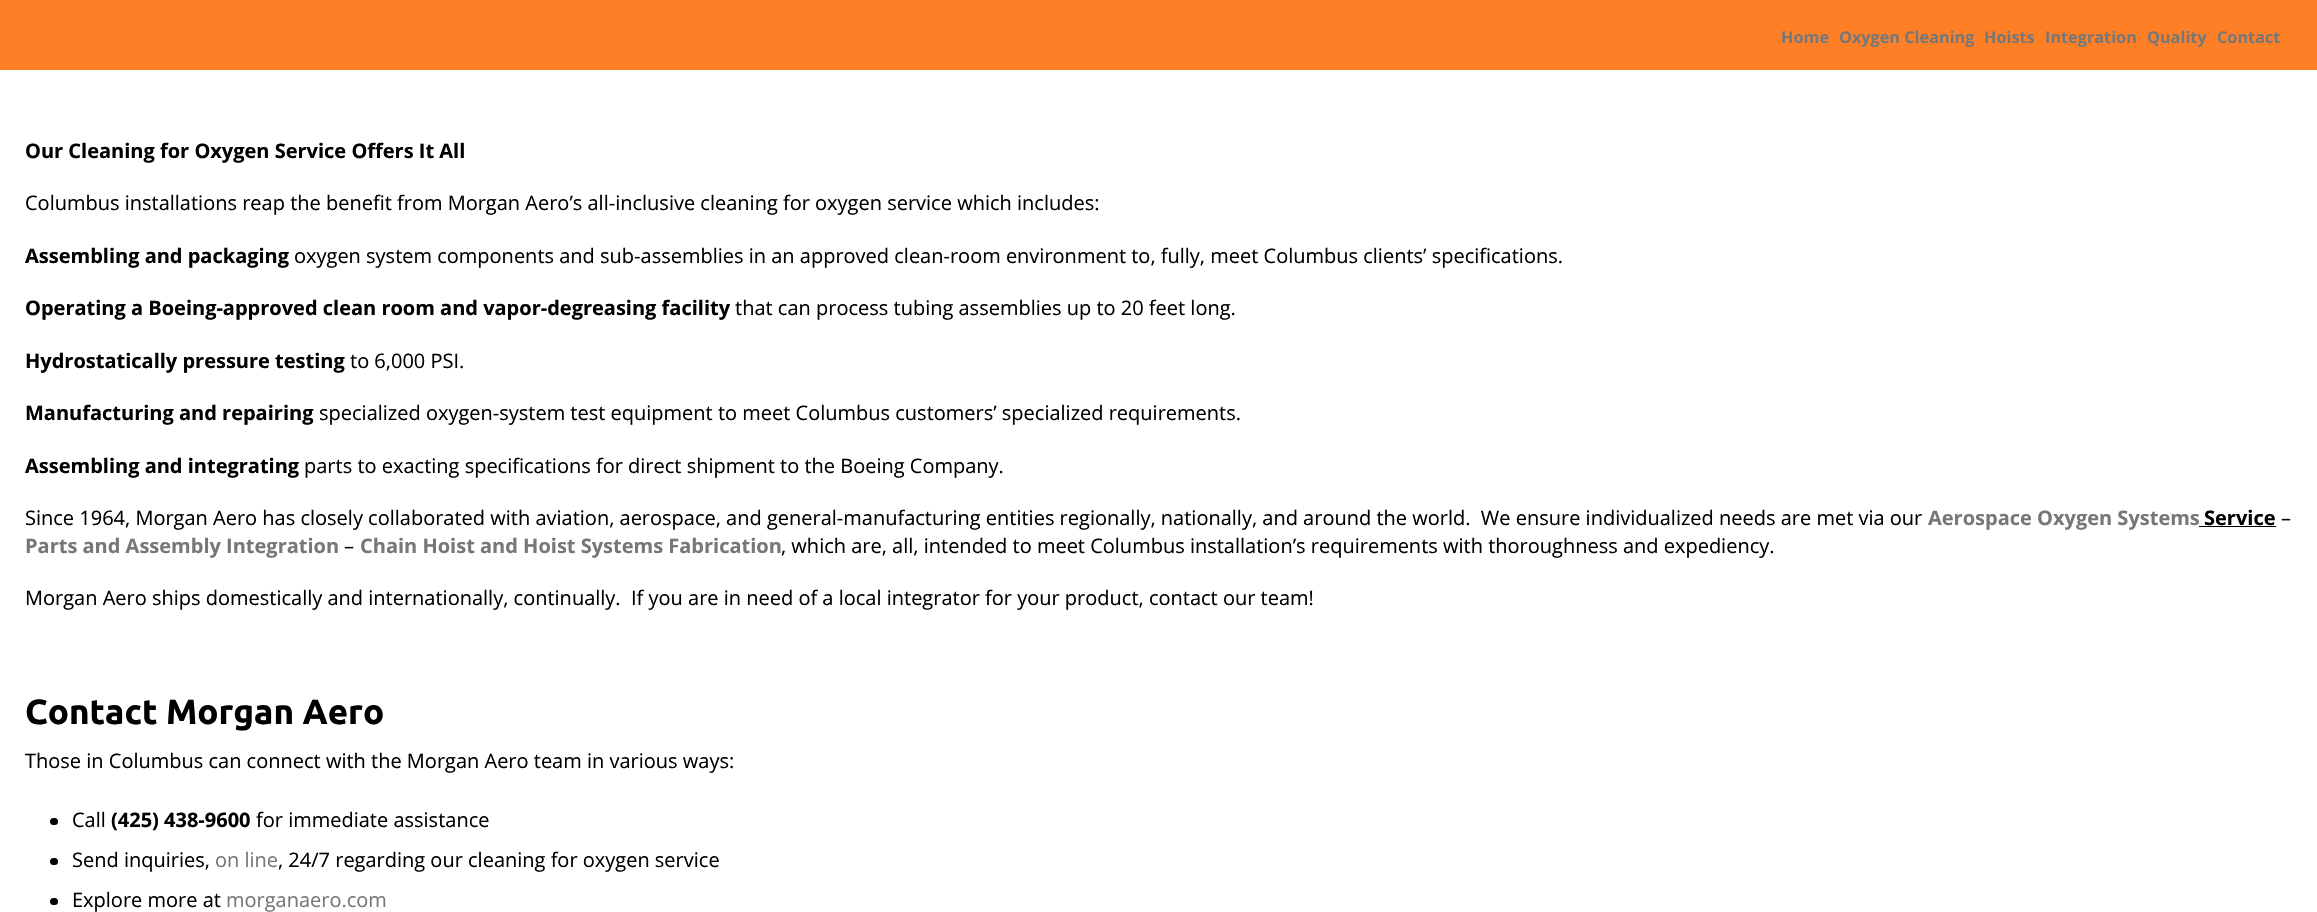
static SkFont makeFont(const char* family, int weight, float size, bool italic = false) {
  SkFontStyle style(weight, SkFontStyle::kNormal_Width,
    italic ? SkFontStyle::kItalic_Slant : SkFontStyle::kUpright_Slant);
  SkFont result(fontMgr->matchFamilyStyle(family, style), size);
  result.setSubpixel(true);
  return result;
}

static void text(SkCanvas* c, const char* s, float x, float y, const SkFont& font, SkColor color) {
  SkPaint ink(SkColor4f::FromColor(color));
  ink.setAntiAlias(true);
  c->drawString(s, x, y, font, ink);
}

static void box(SkCanvas* c, float l, float t, float r, float b, SkColor color) {
  SkPaint ink(SkColor4f::FromColor(color));
  ink.setAntiAlias(true);
  c->drawRect(SkRect::MakeLTRB(l, t, r, b), ink);
}

static void roundBox(SkCanvas* c, float l, float t, float r, float b, float radius, SkColor color) {
  SkPaint ink(SkColor4f::FromColor(color));
  ink.setAntiAlias(true);
  c->drawRoundRect(SkRect::MakeLTRB(l, t, r, b), radius, radius, ink);
}

void draw(SkCanvas* c) {
  SkPaint paint;
  paint.setAntiAlias(true);
  c->clear(0xffffffff);
  box(c, 0, 0, 2317, 70, 0xffff7f27);
  SkFont face1 = makeFont("Open Sans", 700, 16.25f);
  text(c, "Home", 1781, 43, face1, 0xff777777);
  text(c, "Oxygen Cleaning", 1839, 43, face1, 0xff777777);
  text(c, "Hoists", 1984, 43, face1, 0xff777777);
  text(c, "Integration", 2045, 43, face1, 0xff777777);
  text(c, "Quality", 2147, 43, face1, 0xff777777);
  text(c, "Contact", 2217, 43, face1, 0xff777777);
  SkFont face2 = makeFont("Open Sans", 700, 20);
  text(c, "Our Cleaning for Oxygen Service Offers It All", 25, 158, face2, 0xff000000);
  SkFont face3 = makeFont("Open Sans", 400, 20);
  text(c, "Columbus installations reap the benefit from Morgan Aero’s all-inclusive cleaning for oxygen service which includes:", 25, 210, face3, 0xff000000);
  text(c, "Assembling and packaging", 25, 263, face2, 0xff000000);
  text(c, "oxygen system components and sub-assemblies in an approved clean-room environment to, fully, meet Columbus clients’ specifications.", 294, 263, face3, 0xff000000);
  text(c, "Operating a Boeing-approved clean room and vapor-degreasing facility", 25, 315, face2, 0xff000000);
  text(c, "that can process tubing assemblies up to 20 feet long.", 735, 315, face3, 0xff000000);
  text(c, "Hydrostatically pressure testing", 25, 368, face2, 0xff000000);
  text(c, "to 6,000 PSI.", 350, 368, face3, 0xff000000);
  text(c, "Manufacturing and repairing", 25, 420, face2, 0xff000000);
  text(c, "specialized oxygen-system test equipment to meet Columbus customers’ specialized requirements.", 319, 420, face3, 0xff000000);
  text(c, "Assembling and integrating", 25, 473, face2, 0xff000000);
  text(c, "parts to exacting specifications for direct shipment to the Boeing Company.", 304, 473, face3, 0xff000000);
  text(c, "Since 1964, Morgan Aero has closely collaborated with aviation, aerospace, and general-manufacturing entities regionally, nationally, and around the world.  We ensure individualized needs are met via our", 25, 525, face3, 0xff000000);
  text(c, "Aerospace Oxygen Systems", 1928, 525, face2, 0xff777777);
  text(c, "Service", 2204, 525, face2, 0xff000000);
  box(c, 2199, 526, 2276, 527, 0xff000000);
  text(c, "–", 2281, 525, face3, 0xff000000);
  text(c, "Parts and Assembly Integration", 25, 553, face2, 0xff777777);
  text(c, "–", 344, 553, face3, 0xff000000);
  text(c, "Chain Hoist and Hoist Systems Fabrication", 360, 553, face2, 0xff777777);
  text(c, ", which are, all, intended to meet Columbus installation’s requirements with thoroughness and expediency.", 781, 553, face3, 0xff000000);
  text(c, "Morgan Aero ships domestically and internationally, continually.  If you are in need of a local integrator for your product, contact our team!", 25, 605, face3, 0xff000000);
  SkFont face4 = makeFont("Ubuntu", 700, 35);
  text(c, "Contact Morgan Aero", 25, 724, face4, 0xff000000);
  text(c, "Those in Columbus can connect with the Morgan Aero team in various ways:", 25, 768, face3, 0xff000000);
  roundBox(c, 50, 818, 58, 825, 3.5f, 0xff000000);
  text(c, "Call", 72, 827, face3, 0xff000000);
  text(c, "(425) 438-9600", 111, 827, face2, 0xff000000);
  text(c, "for immediate assistance", 256, 827, face3, 0xff000000);
  roundBox(c, 50, 858, 58, 865, 3.5f, 0xff000000);
  text(c, "Send inquiries,", 72, 867, face3, 0xff000000);
  text(c, "on line", 215, 867, face3, 0xff777777);
  text(c, ", 24/7 regarding our cleaning for oxygen service", 278, 867, face3, 0xff000000);
  roundBox(c, 50, 898, 58, 905, 3.5f, 0xff000000);
  text(c, "Explore more at", 72, 907, face3, 0xff000000);
  text(c, "morganaero.com", 226, 907, face3, 0xff777777);
}
